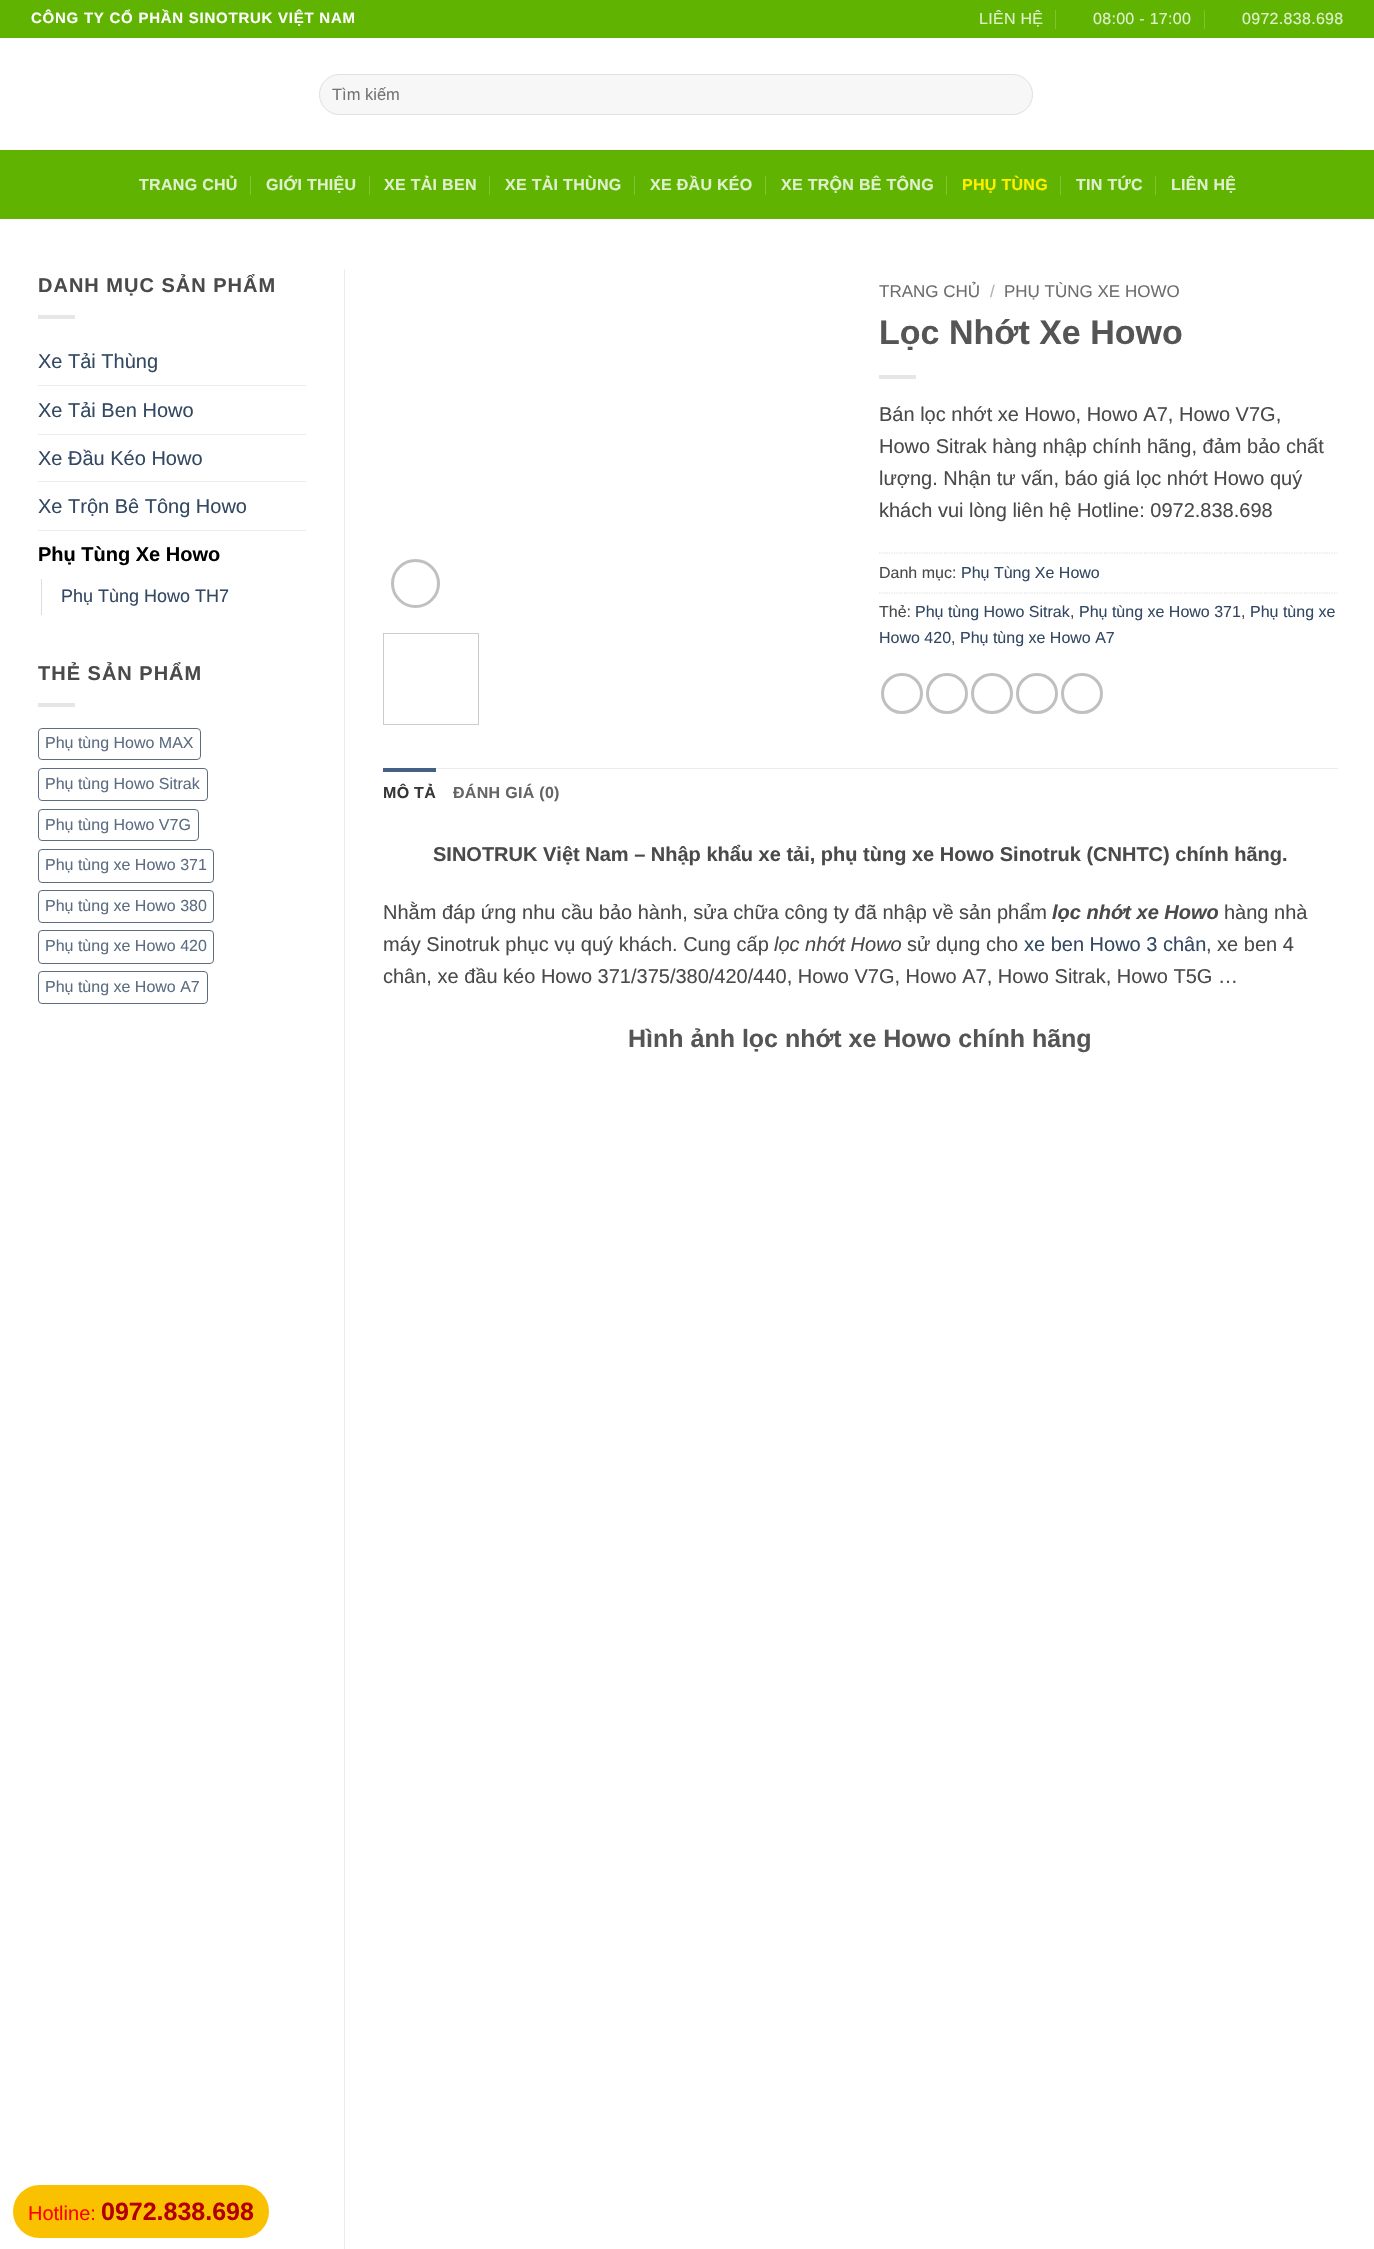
static SkFont makeFont(const char* family, int weight, float size, bool italic = false) {
  SkFontStyle style(weight, SkFontStyle::kNormal_Width,
    italic ? SkFontStyle::kItalic_Slant : SkFontStyle::kUpright_Slant);
  SkFont result(fontMgr->matchFamilyStyle(family, style), size);
  result.setSubpixel(true);
  return result;
}

static void text(SkCanvas* c, const char* s, float x, float y, const SkFont& font, SkColor color) {
  SkPaint ink(SkColor4f::FromColor(color));
  ink.setAntiAlias(true);
  c->drawString(s, x, y, font, ink);
}

static void spacedText(SkCanvas* c, const char* s, float x, float y, const SkFont& font, const SkPaint& ink, float letter, float word) {
  std::vector<SkGlyphID> glyphs(font.countText(s, strlen(s), SkTextEncoding::kUTF8));
  std::vector<float> xs(glyphs.size());
  font.textToGlyphs(s, strlen(s), SkTextEncoding::kUTF8, glyphs);
  font.getXPos(glyphs, xs, x);
  float extra = 0;
  for (size_t i = 0; i < glyphs.size(); i++) {
    xs[i] += extra;
    extra += letter + word * (glyphs[i] == font.unicharToGlyph(' '));
  }
  c->drawTextBlob(SkTextBlob::MakeFromPosHGlyphs(glyphs, xs, y, font), 0, 0, ink);
}

static void box(SkCanvas* c, float l, float t, float r, float b, SkColor color) {
  SkPaint ink(SkColor4f::FromColor(color));
  ink.setAntiAlias(true);
  c->drawRect(SkRect::MakeLTRB(l, t, r, b), ink);
}

static void roundBox(SkCanvas* c, float l, float t, float r, float b, float radius, SkColor color) {
  SkPaint ink(SkColor4f::FromColor(color));
  ink.setAntiAlias(true);
  c->drawRoundRect(SkRect::MakeLTRB(l, t, r, b), radius, radius, ink);
}

void draw(SkCanvas* c) {
  SkPaint paint;
  paint.setAntiAlias(true);
  c->clear(0xffffffff);
  box(c, 0, 0, 1374, 38, 0xff60b301);
  SkFont face1 = makeFont("Liberation Sans", 700, 15);
  paint.setColor(0xffffffff);
  spacedText(c, "CÔNG TY CỔ PHẦN SINOTRUK VIỆT NAM", 31, 23, face1, paint, 0.75f, 0);
  SkFont face2 = makeFont("Liberation Sans", 400, 16);
  paint.setColor(0xffdff0cc);
  spacedText(c, "LIÊN HỆ", 979, 24, face2, paint, 0.3f, 0);
  box(c, 1055, 10, 1056, 29, 0xff80c234);
  spacedText(c, "08:00 - 17:00", 1093, 24, face2, paint, 0.3f, 0);
  box(c, 1204, 10, 1205, 29, 0xff80c234);
  spacedText(c, "0972.838.698", 1242, 24, face2, paint, 0.3f, 0);
  roundBox(c, 319, 74, 1033, 115, 20.5f, 0xfff7f7f7);
  paint.setStyle(SkPaint::kStroke_Style);
  paint.setStrokeWidth(1);
  paint.setColor(0x17000000);
  c->drawRoundRect(SkRect::MakeLTRB(319.5f, 74.5f, 1032.5f, 114.5f), 20, 20, paint);
  SkFont face3 = makeFont("Liberation Sans", 400, 16.5f);
  text(c, "Tìm kiếm", 332, 100, face3, 0xff757575);
  box(c, 0, 150, 1374, 219, 0xff60b301);
  box(c, 31, 150, 1344, 151, 0xff5ea808);
  SkFont face4 = makeFont("Liberation Sans", 700, 16);
  paint.setStyle(SkPaint::kFill_Style);
  paint.setColor(0xffdff0cc);
  spacedText(c, "TRANG CHỦ", 139, 190, face4, paint, 0.3f, 0);
  box(c, 250, 176, 251, 195, 0xff80c234);
  spacedText(c, "GIỚI THIỆU", 266, 190, face4, paint, 0.3f, 0);
  box(c, 369, 176, 370, 195, 0xff80c234);
  spacedText(c, "XE TẢI BEN", 384, 190, face4, paint, 0.3f, 0);
  box(c, 489, 176, 490, 195, 0xff80c234);
  spacedText(c, "XE TẢI THÙNG", 505, 190, face4, paint, 0.3f, 0);
  box(c, 634, 176, 635, 195, 0xff80c234);
  spacedText(c, "XE ĐẦU KÉO", 650, 190, face4, paint, 0.3f, 0);
  box(c, 765, 176, 766, 195, 0xff80c234);
  spacedText(c, "XE TRỘN BÊ TÔNG", 781, 190, face4, paint, 0.3f, 0);
  box(c, 946, 176, 947, 195, 0xff80c234);
  paint.setColor(0xfffeef00);
  spacedText(c, "PHỤ TÙNG", 962, 190, face4, paint, 0.3f, 0);
  box(c, 1060, 176, 1061, 195, 0xff80c234);
  paint.setColor(0xffdff0cc);
  spacedText(c, "TIN TỨC", 1076, 190, face4, paint, 0.3f, 0);
  box(c, 1155, 176, 1156, 195, 0xff80c234);
  spacedText(c, "LIÊN HỆ", 1171, 190, face4, paint, 0.3f, 0);
  SkFont face5 = makeFont("Liberation Sans", 700, 20);
  paint.setColor(0xff4a4a4a);
  spacedText(c, "DANH MỤC SẢN PHẨM", 38, 292, face5, paint, 1, 0);
  box(c, 38, 315, 75, 319, 0xffe6e6e6);
  SkFont face6 = makeFont("Liberation Sans", 400, 20);
  text(c, "Xe Tải Thùng", 38, 368, face6, 0xff334862);
  box(c, 38, 385, 306, 386, 0xffececec);
  text(c, "Xe Tải Ben Howo", 38, 417, face6, 0xff334862);
  box(c, 38, 434, 306, 435, 0xffececec);
  text(c, "Xe Đầu Kéo Howo", 38, 465, face6, 0xff334862);
  box(c, 38, 481, 306, 482, 0xffececec);
  text(c, "Xe Trộn Bê Tông Howo", 38, 513, face6, 0xff334862);
  box(c, 38, 530, 306, 531, 0xffececec);
  text(c, "Phụ Tùng Xe Howo", 38, 561, face5, 0xff000000);
  box(c, 41, 579, 42, 615, 0xffdddddd);
  SkFont face7 = makeFont("Liberation Sans", 400, 18);
  text(c, "Phụ Tùng Howo TH7", 61, 602, face7, 0xff334862);
  spacedText(c, "THẺ SẢN PHẨM", 38, 680, face5, paint, 1, 0);
  box(c, 38, 703, 75, 707, 0xffe6e6e6);
  paint.setStyle(SkPaint::kStroke_Style);
  paint.setColor(0xff5c6d81);
  c->drawRoundRect(SkRect::MakeLTRB(38.5f, 728.5f, 200.5f, 759.5f), 3.5f, 3.5f, paint);
  text(c, "Phụ tùng Howo MAX", 45, 748, face2, 0xff5c6d81);
  c->drawRoundRect(SkRect::MakeLTRB(38.5f, 768.5f, 207.5f, 800.5f), 3.5f, 3.5f, paint);
  text(c, "Phụ tùng Howo Sitrak", 45, 789, face2, 0xff5c6d81);
  c->drawRoundRect(SkRect::MakeLTRB(38.5f, 809.5f, 198.5f, 840.5f), 3.5f, 3.5f, paint);
  text(c, "Phụ tùng Howo V7G", 45, 830, face2, 0xff5c6d81);
  c->drawRoundRect(SkRect::MakeLTRB(38.5f, 849.5f, 213.5f, 882.5f), 3.5f, 3.5f, paint);
  text(c, "Phụ tùng xe Howo 371", 45, 870, face2, 0xff5c6d81);
  c->drawRoundRect(SkRect::MakeLTRB(38.5f, 890.5f, 213.5f, 922.5f), 3.5f, 3.5f, paint);
  text(c, "Phụ tùng xe Howo 380", 45, 911, face2, 0xff5c6d81);
  c->drawRoundRect(SkRect::MakeLTRB(38.5f, 930.5f, 213.5f, 963.5f), 3.5f, 3.5f, paint);
  text(c, "Phụ tùng xe Howo 420", 45, 951, face2, 0xff5c6d81);
  c->drawRoundRect(SkRect::MakeLTRB(38.5f, 971.5f, 207.5f, 1003.5f), 3.5f, 3.5f, paint);
  text(c, "Phụ tùng xe Howo A7", 45, 992, face2, 0xff5c6d81);
  box(c, 344, 269, 345, 2249, 0xffececec);
  paint.setStrokeWidth(3);
  paint.setColor(0xffc0c0c0);
  c->drawCircle(415.5f, 583.5f, 23, paint);
  paint.setStrokeWidth(1);
  paint.setColor(0xffcccccc);
  c->drawRect(SkRect::MakeLTRB(383.5f, 633.5f, 478.5f, 724.5f), paint);
  SkFont face8 = makeFont("Liberation Sans", 400, 17);
  text(c, "TRANG CHỦ", 879, 297, face8, 0xff6e6e6e);
  text(c, "/", 990, 297, face8, 0xffb2b2b2);
  text(c, "PHỤ TÙNG XE HOWO", 1004, 297, face8, 0xff6e6e6e);
  SkFont face9 = makeFont("Liberation Sans", 700, 34);
  text(c, "Lọc Nhớt Xe Howo", 879, 344, face9, 0xff555555);
  box(c, 879, 375, 916, 379, 0xffe6e6e6);
  text(c, "Bán lọc nhớt xe Howo, Howo A7, Howo V7G,", 879, 421, face6, 0xff4a4a4a);
  text(c, "Howo Sitrak hàng nhập chính hãng, đảm bảo chất", 879, 453, face6, 0xff4a4a4a);
  text(c, "lượng. Nhận tư vấn, báo giá lọc nhớt Howo quý", 879, 485, face6, 0xff4a4a4a);
  text(c, "khách vui lòng liên hệ Hotline: 0972.838.698", 879, 517, face6, 0xff4a4a4a);
  paint.setStrokeWidth(1.2f);
  paint.setColor(0xffdddddd);
  paint.setPathEffect(SkDashPathEffect::Make({{1.25f, 1.25f}}, 0));
  c->drawPath(SkPathBuilder().moveTo(879, 553).lineTo(1337.5f, 553).detach(), paint);
  paint.setPathEffect(nullptr);
  text(c, "Danh mục:", 879, 578, face2, 0xff4a4a4a);
  text(c, "Phụ Tùng Xe Howo", 961, 578, face2, 0xff334862);
  paint.setPathEffect(SkDashPathEffect::Make({{1.25f, 1.25f}}, 0));
  c->drawPath(SkPathBuilder().moveTo(879, 593).lineTo(1337.5f, 593).detach(), paint);
  paint.setPathEffect(nullptr);
  text(c, "Thẻ:", 879, 617, face2, 0xff4a4a4a);
  text(c, "Phụ tùng Howo Sitrak", 915, 617, face2, 0xff334862);
  text(c, ",", 1070, 617, face2, 0xff4a4a4a);
  text(c, "Phụ tùng xe Howo 371", 1079, 617, face2, 0xff334862);
  text(c, ",", 1241, 617, face2, 0xff4a4a4a);
  text(c, "Phụ tùng xe", 1250, 617, face2, 0xff334862);
  text(c, "Howo 420", 879, 643, face2, 0xff334862);
  text(c, ",", 951, 643, face2, 0xff4a4a4a);
  text(c, "Phụ tùng xe Howo A7", 960, 643, face2, 0xff334862);
  paint.setStrokeWidth(3);
  paint.setColor(0xffc0c0c0);
  c->drawRoundRect(SkRect::MakeLTRB(882.5f, 674.5f, 921.5f, 712.5f), 19, 19, paint);
  c->drawRoundRect(SkRect::MakeLTRB(927.5f, 674.5f, 966.5f, 712.5f), 19, 19, paint);
  c->drawRoundRect(SkRect::MakeLTRB(972.5f, 674.5f, 1011.5f, 712.5f), 19, 19, paint);
  c->drawRoundRect(SkRect::MakeLTRB(1017.5f, 674.5f, 1056.5f, 712.5f), 19, 19, paint);
  c->drawRoundRect(SkRect::MakeLTRB(1062.5f, 674.5f, 1101.5f, 712.5f), 19, 19, paint);
  box(c, 436, 768, 1338, 769, 0xffececec);
  box(c, 383, 768, 436, 772, 0xff446084);
  paint.setStyle(SkPaint::kFill_Style);
  paint.setColor(0xff363636);
  spacedText(c, "MÔ TẢ", 383, 798, face4, paint, 0.3f, 0);
  paint.setColor(0xff656565);
  spacedText(c, "ĐÁNH GIÁ (0)", 453, 798, face4, paint, 0.3f, 0);
  text(c, "SINOTRUK Việt Nam – Nhập khẩu xe tải, phụ tùng xe Howo Sinotruk (CNHTC) chính hãng.", 433, 861, face5, 0xff4a4a4a);
  text(c, "Nhằm đáp ứng nhu cầu bảo hành, sửa chữa công ty đã nhập về sản phẩm", 383, 919, face6, 0xff4a4a4a);
  SkFont face10 = makeFont("Liberation Sans", 700, 20, true);
  text(c, "lọc nhớt xe Howo", 1052, 919, face10, 0xff4a4a4a);
  text(c, "hàng nhà", 1224, 919, face6, 0xff4a4a4a);
  text(c, "máy Sinotruk phục vụ quý khách. Cung cấp", 383, 951, face6, 0xff4a4a4a);
  SkFont face11 = makeFont("Liberation Sans", 400, 20, true);
  text(c, "lọc nhớt Howo", 774, 951, face11, 0xff4a4a4a);
  text(c, "sử dụng cho", 907, 951, face6, 0xff4a4a4a);
  text(c, "xe ben Howo 3 chân", 1024, 951, face6, 0xff334862);
  text(c, ", xe ben 4", 1206, 951, face6, 0xff4a4a4a);
  text(c, "chân, xe đầu kéo Howo 371/375/380/420/440, Howo V7G, Howo A7, Howo Sitrak, Howo T5G …", 383, 983, face6, 0xff4a4a4a);
  SkFont face12 = makeFont("Liberation Sans", 700, 25);
  text(c, "Hình ảnh lọc nhớt xe Howo chính hãng", 628, 1047, face12, 0xff555555);
  roundBox(c, 13, 2185, 269, 2238, 26.5f, 0xfffac100);
  text(c, "Hotline:", 28, 2220, face6, 0xffff0000);
  text(c, "0972.838.698", 101, 2220, face12, 0xffb20000);
}
